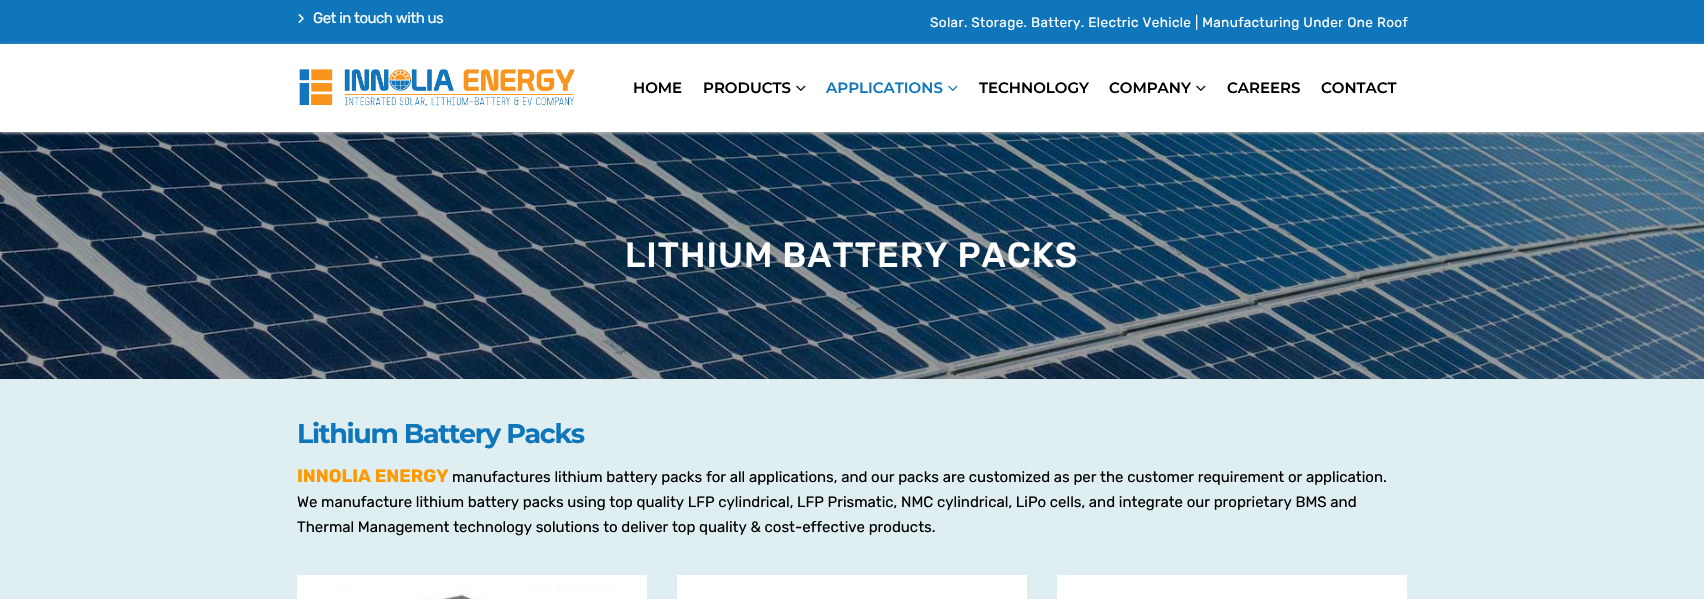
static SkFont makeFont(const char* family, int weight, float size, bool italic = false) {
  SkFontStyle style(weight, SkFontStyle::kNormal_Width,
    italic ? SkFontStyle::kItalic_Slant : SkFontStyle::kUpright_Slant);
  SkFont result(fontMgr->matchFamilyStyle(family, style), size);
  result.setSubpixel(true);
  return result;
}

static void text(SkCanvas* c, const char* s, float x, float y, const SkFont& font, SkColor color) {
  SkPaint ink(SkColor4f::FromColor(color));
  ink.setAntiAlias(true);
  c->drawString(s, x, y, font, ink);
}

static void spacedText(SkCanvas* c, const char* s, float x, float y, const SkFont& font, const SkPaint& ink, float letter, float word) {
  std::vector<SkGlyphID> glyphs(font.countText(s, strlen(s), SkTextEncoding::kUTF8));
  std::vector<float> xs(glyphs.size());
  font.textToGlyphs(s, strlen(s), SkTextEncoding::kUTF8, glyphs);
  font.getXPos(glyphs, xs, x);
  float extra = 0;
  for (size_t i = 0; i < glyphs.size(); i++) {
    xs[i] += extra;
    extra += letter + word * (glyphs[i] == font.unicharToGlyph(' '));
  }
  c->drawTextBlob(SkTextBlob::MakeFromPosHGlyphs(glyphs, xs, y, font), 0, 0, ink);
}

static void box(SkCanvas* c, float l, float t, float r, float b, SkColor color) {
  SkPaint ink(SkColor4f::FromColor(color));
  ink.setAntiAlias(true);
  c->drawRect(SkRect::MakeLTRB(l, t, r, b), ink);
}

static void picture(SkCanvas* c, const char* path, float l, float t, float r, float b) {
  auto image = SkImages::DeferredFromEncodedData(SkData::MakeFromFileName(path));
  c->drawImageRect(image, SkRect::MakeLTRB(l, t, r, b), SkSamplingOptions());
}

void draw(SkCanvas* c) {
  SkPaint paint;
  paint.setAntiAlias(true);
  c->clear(0xffdfeef0);
  box(c, 0, 0, 1704, 44, 0xff1076bc);
  picture(c, "img_01.png", 298, 14, 304, 23);
  SkFont face1 = makeFont("Rubik", 400, 15);
  paint.setColor(0xffffffff);
  spacedText(c, "Get in touch with us", 313, 23, face1, paint, -0.5f, 0);
  SkFont face2 = makeFont("Rubik", 400, 13.55f);
  spacedText(c, "Solar. Storage. Battery. Electric Vehicle | Manufacturing Under One Roof", 930, 27, face2, paint, 0.35f, 0);
  picture(c, "img_05.png", 0, 132, 1704, 379);
  paint.setColor(0xffbbbbbb);
  paint.setMaskFilter(SkMaskFilter::MakeBlur(kNormal_SkBlurStyle, 1.5f));
  c->drawRect(SkRect::MakeLTRB(0, 45, 1704, 133), paint);
  paint.setMaskFilter(nullptr);
  box(c, 0, 44, 1704, 132, 0xffffffff);
  picture(c, "img_02.png", 299, 69, 575, 107);
  SkFont face3 = makeFont("Montserrat", 600, 15);
  text(c, "HOME", 633, 93, face3, 0xff000000);
  text(c, "PRODUCTS", 703, 93, face3, 0xff000000);
  picture(c, "img_03.png", 796, 85, 806, 91);
  text(c, "APPLICATIONS", 826, 93, face3, 0xff1076bc);
  picture(c, "img_04.png", 948, 85, 958, 91);
  text(c, "TECHNOLOGY", 979, 93, face3, 0xff000000);
  text(c, "COMPANY", 1109, 93, face3, 0xff000000);
  picture(c, "img_03.png", 1196, 85, 1206, 91);
  text(c, "CAREERS", 1227, 93, face3, 0xff000000);
  text(c, "CONTACT", 1321, 93, face3, 0xff000000);
  SkFont face4 = makeFont("Rubik", 500, 35);
  paint.setColor(0xffffffff);
  spacedText(c, "LITHIUM BATTERY PACKS", 625, 267, face4, paint, 1, 0);
  SkFont face5 = makeFont("Montserrat", 700, 27);
  paint.setColor(0xff1076bc);
  spacedText(c, "Lithium Battery Packs", 297, 443, face5, paint, -1.35f, 0);
  SkFont face6 = makeFont("Rubik", 700, 18);
  text(c, "INNOLIA ENERGY", 297, 482, face6, 0xffff9900);
  text(c, "manufactures lithium battery packs for all applications, and our packs are customized as per the customer requirement or application.", 452, 482, face1, 0xff000000);
  text(c, "We manufacture lithium battery packs using top quality LFP cylindrical, LFP Prismatic, NMC cylindrical, LiPo cells, and integrate our proprietary BMS and", 297, 507, face1, 0xff000000);
  text(c, "Thermal Management technology solutions to deliver top quality & cost-effective products.", 297, 532, face1, 0xff000000);
  picture(c, "img_06.png", 297, 575, 647, 599);
  box(c, 677, 575, 1027, 599, 0xffffffff);
  box(c, 1057, 575, 1407, 599, 0xffffffff);
}
